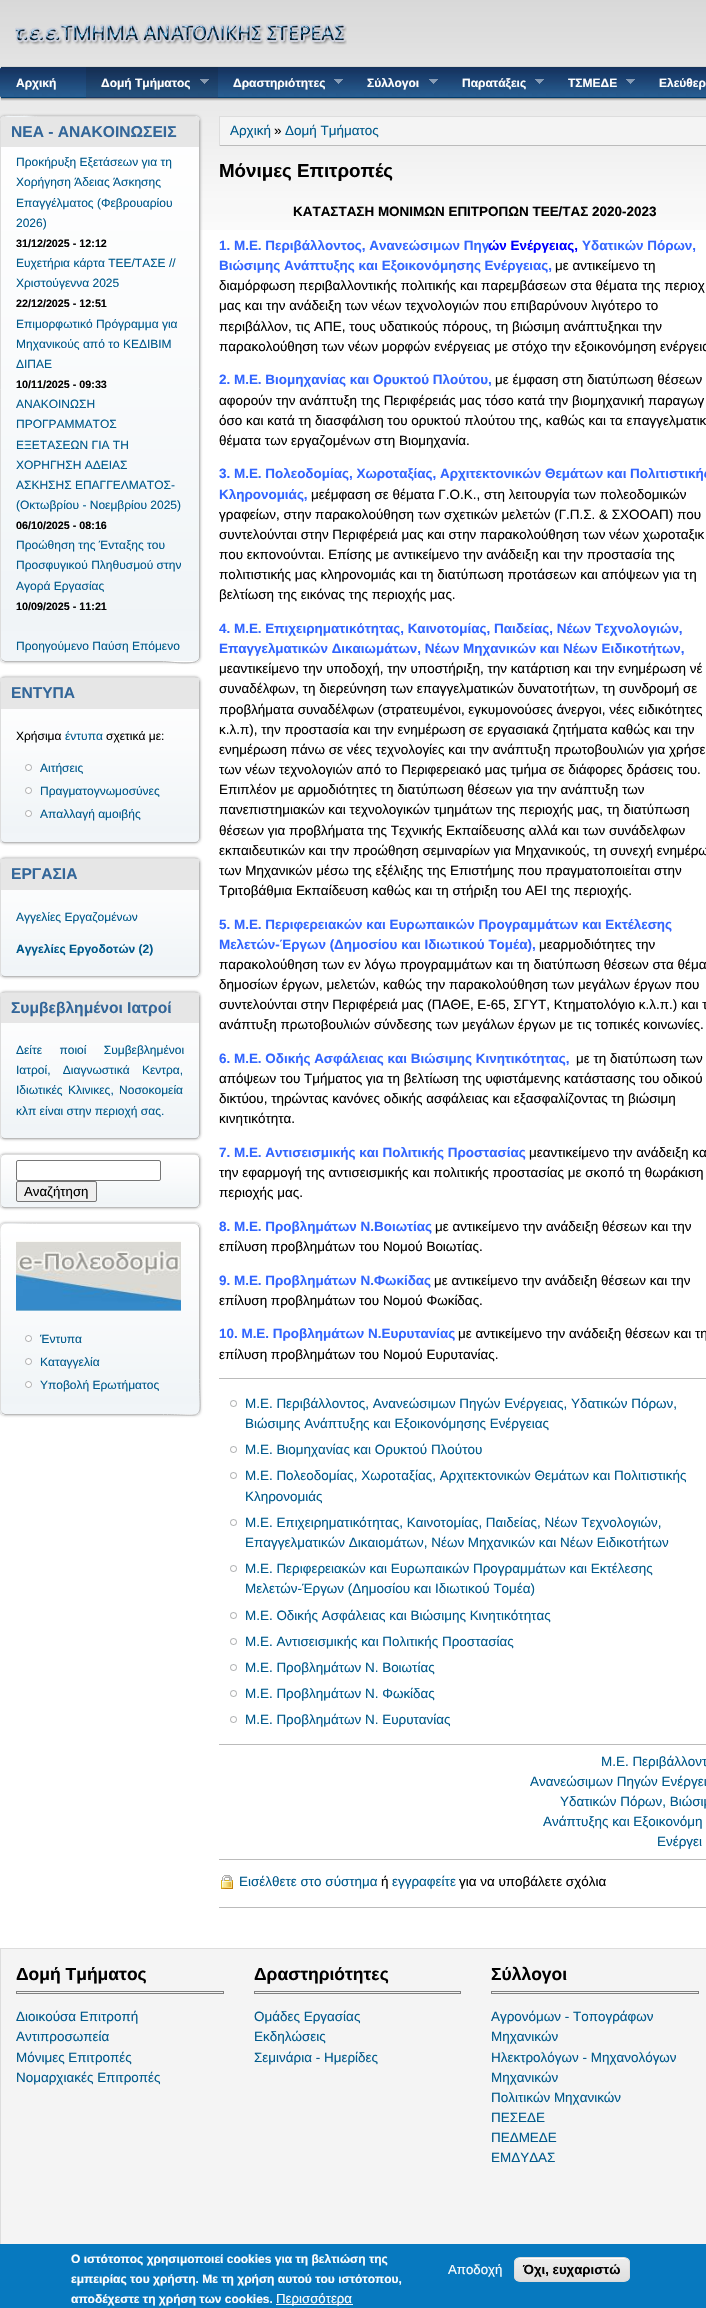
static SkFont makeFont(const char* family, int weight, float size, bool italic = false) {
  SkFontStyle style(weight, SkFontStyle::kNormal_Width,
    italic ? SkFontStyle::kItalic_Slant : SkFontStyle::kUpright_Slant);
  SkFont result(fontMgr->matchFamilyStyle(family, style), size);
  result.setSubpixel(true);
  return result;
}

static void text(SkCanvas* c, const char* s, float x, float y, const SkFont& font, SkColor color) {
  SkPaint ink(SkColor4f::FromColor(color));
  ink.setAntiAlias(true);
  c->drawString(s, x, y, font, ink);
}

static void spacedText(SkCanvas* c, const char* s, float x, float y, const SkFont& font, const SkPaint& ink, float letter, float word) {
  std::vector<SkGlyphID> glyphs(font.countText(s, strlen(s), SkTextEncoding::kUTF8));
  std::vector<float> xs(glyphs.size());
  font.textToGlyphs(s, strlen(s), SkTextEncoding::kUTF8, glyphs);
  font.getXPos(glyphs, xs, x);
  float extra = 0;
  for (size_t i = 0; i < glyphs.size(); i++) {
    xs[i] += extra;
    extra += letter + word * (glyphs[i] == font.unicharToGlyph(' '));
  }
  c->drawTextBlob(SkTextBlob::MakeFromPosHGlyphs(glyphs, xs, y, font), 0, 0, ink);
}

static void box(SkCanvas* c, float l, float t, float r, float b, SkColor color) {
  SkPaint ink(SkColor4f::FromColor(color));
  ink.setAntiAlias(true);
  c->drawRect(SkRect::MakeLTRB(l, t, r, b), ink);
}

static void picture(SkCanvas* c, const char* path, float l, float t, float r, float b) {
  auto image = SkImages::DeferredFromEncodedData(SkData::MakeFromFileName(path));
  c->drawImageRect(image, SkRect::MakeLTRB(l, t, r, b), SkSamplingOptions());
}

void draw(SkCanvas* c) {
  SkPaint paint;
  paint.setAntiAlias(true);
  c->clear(0xffffffff);
  picture(c, "img_01.png", 0, 0, 706, 230);
  picture(c, "img_02.png", 15, 24, 347, 45);
  picture(c, "img_03.png", 1, 66, 706, 101);
  picture(c, "img_04.png", 0, 66, 1, 101);
  SkFont face1 = makeFont("Liberation Sans", 700, 12);
  text(c, "Αρχική", 16, 87, face1, 0xffffffff);
  picture(c, "img_05.png", 86, 67, 218, 98);
  text(c, "Δομή Τμήματος", 101, 87, face1, 0xffffffff);
  picture(c, "img_06.png", 200, 79, 209, 84);
  text(c, "Δραστηριότητες", 233, 87, face1, 0xffffffff);
  picture(c, "img_07.png", 334, 79, 343, 84);
  text(c, "Σύλλογοι", 367, 87, face1, 0xffffffff);
  picture(c, "img_07.png", 429, 79, 438, 84);
  text(c, "Παρατάξεις", 462, 87, face1, 0xffffffff);
  picture(c, "img_07.png", 535, 79, 544, 84);
  text(c, "ΤΣΜΕΔΕ", 568, 87, face1, 0xffffffff);
  picture(c, "img_07.png", 626, 79, 635, 84);
  text(c, "Ελεύθερ", 659, 87, face1, 0xffffffff);
  paint.setColor(0xff999999);
  paint.setMaskFilter(SkMaskFilter::MakeBlur(kNormal_SkBlurStyle, 1.5f));
  c->drawRoundRect(SkRect::MakeLTRB(0, 116, 200, 662), 5, 5, paint);
  paint.setMaskFilter(nullptr);
  c->save();
  c->clipPath(SkPathBuilder().moveTo(5, 116).lineTo(195, 116).cubicTo(198, 116, 200, 118, 200, 121).lineTo(200, 657).cubicTo(200, 660, 198, 662, 195, 662).lineTo(5, 662).cubicTo(2, 662, 0, 660, 0, 657).lineTo(0, 121).cubicTo(0, 118, 2, 116, 5, 116).close().detach(), true);
  {
    const SkColor colors[] = {0xffffffff, 0xfffafbfc, 0xfff2f6f8, 0xfff0f4f7, 0xfff1f5f8, 0xfff1f5f8};
    const float stops[] = {0, 0.42f, 0.8f, 0.94f, 0.95f, 1};
    const SkPoint ends[] = {{1, -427}, {1, 117}};
    paint.setShader(SkGradientShader::MakeLinear(ends, colors, stops, 6, SkTileMode::kClamp));
    paint.setAlpha(255);
  }
  c->drawRect(SkRect::MakeLTRB(0, 116, 200, 117), paint);
  {
    const SkColor colors[] = {0xffffffff, 0xfffafbfc, 0xfff2f6f8, 0xfff0f4f7, 0xfff1f5f8, 0xfff1f5f8};
    const float stops[] = {0, 0.42f, 0.8f, 0.94f, 0.95f, 1};
    const SkPoint ends[] = {{1, 117}, {1, 661}};
    paint.setShader(SkGradientShader::MakeLinear(ends, colors, stops, 6, SkTileMode::kClamp));
    paint.setAlpha(255);
  }
  c->drawRect(SkRect::MakeLTRB(0, 118, 200, 661), paint);
  {
    const SkColor colors[] = {0xffffffff, 0xfffafbfc, 0xfff2f6f8, 0xfff0f4f7, 0xfff1f5f8, 0xfff1f5f8};
    const float stops[] = {0, 0.42f, 0.8f, 0.94f, 0.95f, 1};
    const SkPoint ends[] = {{1, 661}, {1, 1205}};
    paint.setShader(SkGradientShader::MakeLinear(ends, colors, stops, 6, SkTileMode::kClamp));
    paint.setAlpha(255);
  }
  c->drawRect(SkRect::MakeLTRB(0, 661, 200, 662), paint);
  c->restore();
  paint.setStyle(SkPaint::kStroke_Style);
  paint.setStrokeWidth(1);
  paint.setShader(nullptr);
  paint.setColor(0xffbbbbbb);
  c->drawPath(SkPathBuilder().moveTo(198, 118).lineTo(199.5f, 120.5f).lineTo(199.5f, 657).cubicTo(199.5f, 667, 169.5f, 661.5f, 163.5f, 661.5f).lineTo(5, 661.5f).lineTo(2, 660).detach(), paint);
  paint.setColor(0xffdddddd);
  c->drawPath(SkPathBuilder().moveTo(2, 660).lineTo(0.5f, 657.5f).lineTo(0.5f, 121).cubicTo(0.5f, 111, 30.5f, 116.5f, 36.5f, 116.5f).lineTo(195, 116.5f).lineTo(198, 118).detach(), paint);
  box(c, 1, 117, 199, 147, 0xffe6e6e6);
  SkFont face2 = makeFont("Liberation Sans", 700, 15.6f);
  text(c, "ΝΕΑ - ΑΝΑΚΟΙΝΩΣΕΙΣ", 11, 137, face2, 0xff336699);
  SkFont face3 = makeFont("Liberation Sans", 400, 12);
  text(c, "Προκήρυξη Εξετάσεων για τη", 16, 166, face3, 0xff005a8c);
  text(c, "Χορήγηση Άδειας Άσκησης", 16, 186, face3, 0xff005a8c);
  text(c, "Επαγγέλματος (Φεβρουαρίου", 16, 207, face3, 0xff005a8c);
  text(c, "2026)", 16, 227, face3, 0xff005a8c);
  SkFont face4 = makeFont("Liberation Sans", 700, 10.75f);
  text(c, "31/12/2025 - 12:12", 16, 247, face4, 0xff000000);
  text(c, "Ευχετήρια κάρτα ΤΕΕ/ΤΑΣΕ //", 16, 267, face3, 0xff005a8c);
  text(c, "Χριστούγεννα 2025", 16, 287, face3, 0xff005a8c);
  text(c, "22/12/2025 - 12:51", 16, 307, face4, 0xff000000);
  text(c, "Επιμορφωτικό Πρόγραμμα για", 16, 328, face3, 0xff005a8c);
  text(c, "Μηχανικούς από το ΚΕΔΙΒΙΜ", 16, 348, face3, 0xff005a8c);
  text(c, "ΔΙΠΑΕ", 16, 368, face3, 0xff005a8c);
  text(c, "10/11/2025 - 09:33", 16, 388, face4, 0xff000000);
  text(c, "ΑΝΑΚΟΙΝΩΣΗ", 16, 408, face3, 0xff005a8c);
  text(c, "ΠΡΟΓΡΑΜΜΑΤΟΣ", 16, 428, face3, 0xff005a8c);
  text(c, "ΕΞΕΤΑΣΕΩΝ ΓΙΑ ΤΗ", 16, 449, face3, 0xff005a8c);
  text(c, "ΧΟΡΗΓΗΣΗ ΑΔΕΙΑΣ", 16, 469, face3, 0xff005a8c);
  text(c, "ΑΣΚΗΣΗΣ ΕΠΑΓΓΕΛΜΑΤΟΣ-", 16, 489, face3, 0xff005a8c);
  text(c, "(Οκτωβρίου - Νοεμβρίου 2025)", 16, 509, face3, 0xff005a8c);
  text(c, "06/10/2025 - 08:16", 16, 529, face4, 0xff000000);
  text(c, "Προώθηση της Ένταξης του", 16, 549, face3, 0xff005a8c);
  text(c, "Προσφυγικού Πληθυσμού στην", 16, 569, face3, 0xff005a8c);
  text(c, "Αγορά Εργασίας", 16, 590, face3, 0xff005a8c);
  text(c, "10/09/2025 - 11:21", 16, 610, face4, 0xff000000);
  text(c, "Προηγούμενο Παύση Επόμενο", 16, 650, face3, 0xff005a8c);
  paint.setStyle(SkPaint::kFill_Style);
  paint.setColor(0xff999999);
  paint.setMaskFilter(SkMaskFilter::MakeBlur(kNormal_SkBlurStyle, 1.5f));
  c->drawRoundRect(SkRect::MakeLTRB(0, 677, 200, 843), 5, 5, paint);
  paint.setMaskFilter(nullptr);
  c->save();
  c->clipPath(SkPathBuilder().moveTo(5, 677).lineTo(195, 677).cubicTo(198, 677, 200, 679, 200, 682).lineTo(200, 838).cubicTo(200, 841, 198, 843, 195, 843).lineTo(5, 843).cubicTo(2, 843, 0, 841, 0, 838).lineTo(0, 682).cubicTo(0, 679, 2, 677, 5, 677).close().detach(), true);
  {
    const SkColor colors[] = {0xffffffff, 0xfffafbfc, 0xfff2f6f8, 0xfff0f4f7, 0xfff1f5f8, 0xfff1f5f8};
    const float stops[] = {0, 0.42f, 0.8f, 0.94f, 0.95f, 1};
    const SkPoint ends[] = {{1, 678}, {1, 842}};
    paint.setShader(SkGradientShader::MakeLinear(ends, colors, stops, 6, SkTileMode::kClamp));
    paint.setAlpha(255);
  }
  c->drawRect(SkRect::MakeLTRB(0, 679, 200, 842), paint);
  c->restore();
  paint.setStyle(SkPaint::kStroke_Style);
  paint.setShader(nullptr);
  paint.setColor(0xffbbbbbb);
  c->drawPath(SkPathBuilder().moveTo(198, 679).cubicTo(199, 679.5f, 199.5f, 681, 199.5f, 682).lineTo(199.5f, 838).cubicTo(199.5f, 839, 199, 840.5f, 198, 841).cubicTo(197.5f, 842, 196, 842.5f, 195, 842.5f).lineTo(5, 842.5f).cubicTo(4, 842.5f, 2.5f, 842, 2, 841).detach(), paint);
  paint.setColor(0xffdddddd);
  c->drawPath(SkPathBuilder().moveTo(2, 841).cubicTo(1, 840.5f, 0.5f, 839, 0.5f, 838).lineTo(0.5f, 682).cubicTo(0.5f, 681, 1, 679.5f, 2, 679).cubicTo(2.5f, 678, 4, 677.5f, 5, 677.5f).lineTo(195, 677.5f).cubicTo(196, 677.5f, 197.5f, 678, 198, 679).detach(), paint);
  box(c, 1, 678, 199, 709, 0xffe6e6e6);
  text(c, "ΕΝΤΥΠΑ", 11, 698, face2, 0xff336699);
  text(c, "Χρήσιμα", 16, 740, face3, 0xff000000);
  text(c, "έντυπα", 65, 740, face3, 0xff005a8c);
  text(c, "σχετικά με:", 106, 740, face3, 0xff000000);
  picture(c, "img_08.png", 25, 764, 32, 771);
  text(c, "Αιτήσεις", 40, 772, face3, 0xff005a8c);
  picture(c, "img_09.png", 25, 787, 32, 794);
  text(c, "Πραγματογνωμοσύνες", 40, 795, face3, 0xff005a8c);
  picture(c, "img_10.png", 25, 810, 32, 817);
  text(c, "Απαλλαγή αμοιβής", 40, 818, face3, 0xff005a8c);
  paint.setStyle(SkPaint::kFill_Style);
  paint.setColor(0xff999999);
  paint.setMaskFilter(SkMaskFilter::MakeBlur(kNormal_SkBlurStyle, 1.5f));
  c->drawRoundRect(SkRect::MakeLTRB(0, 858, 200, 977), 5, 5, paint);
  paint.setMaskFilter(nullptr);
  c->save();
  c->clipPath(SkPathBuilder().moveTo(5, 858).lineTo(195, 858).cubicTo(198, 858, 200, 860, 200, 863).lineTo(200, 972).cubicTo(200, 975, 198, 977, 195, 977).lineTo(5, 977).cubicTo(2, 977, 0, 975, 0, 972).lineTo(0, 863).cubicTo(0, 860, 2, 858, 5, 858).close().detach(), true);
  {
    const SkColor colors[] = {0xffffffff, 0xfffafbfc, 0xfff2f6f8, 0xfff0f4f7, 0xfff1f5f8, 0xfff1f5f8};
    const float stops[] = {0, 0.42f, 0.8f, 0.94f, 0.95f, 1};
    const SkPoint ends[] = {{1, 859}, {1, 976}};
    paint.setShader(SkGradientShader::MakeLinear(ends, colors, stops, 6, SkTileMode::kClamp));
    paint.setAlpha(255);
  }
  c->drawRect(SkRect::MakeLTRB(0, 860, 200, 976), paint);
  c->restore();
  paint.setStyle(SkPaint::kStroke_Style);
  paint.setShader(nullptr);
  paint.setColor(0xffbbbbbb);
  c->drawPath(SkPathBuilder().moveTo(198, 860).cubicTo(199, 860.5f, 199.5f, 862, 199.5f, 863).lineTo(199.5f, 972).cubicTo(199.5f, 973, 199, 974.5f, 198, 975).cubicTo(197.5f, 976, 196, 976.5f, 195, 976.5f).lineTo(5, 976.5f).cubicTo(4, 976.5f, 2.5f, 976, 2, 975).detach(), paint);
  paint.setColor(0xffdddddd);
  c->drawPath(SkPathBuilder().moveTo(2, 975).cubicTo(1, 974.5f, 0.5f, 973, 0.5f, 972).lineTo(0.5f, 863).cubicTo(0.5f, 862, 1, 860.5f, 2, 860).cubicTo(2.5f, 859, 4, 858.5f, 5, 858.5f).lineTo(195, 858.5f).cubicTo(196, 858.5f, 197.5f, 859, 198, 860).detach(), paint);
  box(c, 1, 859, 199, 890, 0xffe6e6e6);
  text(c, "ΕΡΓΑΣΙΑ", 11, 879, face2, 0xff336699);
  text(c, "Αγγελίες Εργαζομένων", 16, 921, face3, 0xff005a8c);
  text(c, "Αγγελίες Εργοδοτών (2)", 16, 953, face1, 0xff005a8c);
  paint.setStyle(SkPaint::kFill_Style);
  paint.setColor(0xff999999);
  paint.setMaskFilter(SkMaskFilter::MakeBlur(kNormal_SkBlurStyle, 1.5f));
  c->drawRoundRect(SkRect::MakeLTRB(0, 992, 200, 1139), 5, 5, paint);
  paint.setMaskFilter(nullptr);
  c->save();
  c->clipPath(SkPathBuilder().moveTo(5, 992).lineTo(195, 992).cubicTo(198, 992, 200, 994, 200, 997).lineTo(200, 1134).cubicTo(200, 1137, 198, 1139, 195, 1139).lineTo(5, 1139).cubicTo(2, 1139, 0, 1137, 0, 1134).lineTo(0, 997).cubicTo(0, 994, 2, 992, 5, 992).close().detach(), true);
  {
    const SkColor colors[] = {0xffffffff, 0xfffafbfc, 0xfff2f6f8, 0xfff0f4f7, 0xfff1f5f8, 0xfff1f5f8};
    const float stops[] = {0, 0.42f, 0.8f, 0.94f, 0.95f, 1};
    const SkPoint ends[] = {{1, 993}, {1, 1138}};
    paint.setShader(SkGradientShader::MakeLinear(ends, colors, stops, 6, SkTileMode::kClamp));
    paint.setAlpha(255);
  }
  c->drawRect(SkRect::MakeLTRB(0, 994, 200, 1138), paint);
  c->restore();
  paint.setStyle(SkPaint::kStroke_Style);
  paint.setShader(nullptr);
  paint.setColor(0xffbbbbbb);
  c->drawPath(SkPathBuilder().moveTo(198, 994).cubicTo(199, 994.5f, 199.5f, 996, 199.5f, 997).lineTo(199.5f, 1134).cubicTo(199.5f, 1135, 199, 1136.5f, 198, 1137).cubicTo(197.5f, 1138, 196, 1138.5f, 195, 1138.5f).lineTo(5, 1138.5f).cubicTo(4, 1138.5f, 2.5f, 1138, 2, 1137).detach(), paint);
  paint.setColor(0xffdddddd);
  c->drawPath(SkPathBuilder().moveTo(2, 1137).cubicTo(1, 1136.5f, 0.5f, 1135, 0.5f, 1134).lineTo(0.5f, 997).cubicTo(0.5f, 996, 1, 994.5f, 2, 994).cubicTo(2.5f, 993, 4, 992.5f, 5, 992.5f).lineTo(195, 992.5f).cubicTo(196, 992.5f, 197.5f, 993, 198, 994).detach(), paint);
  box(c, 1, 993, 199, 1023, 0xffe6e6e6);
  text(c, "Συμβεβλημένοι Ιατροί", 11, 1013, face2, 0xff336699);
  paint.setStyle(SkPaint::kFill_Style);
  paint.setColor(0xff005a8c);
  spacedText(c, "Δείτε ποιοί Συμβεβλημένοι", 16, 1054, face3, paint, 0, 14);
  spacedText(c, "Ιατροί, Διαγνωστικά Κεντρα,", 16, 1074, face3, paint, 0, 9);
  spacedText(c, "Ιδιωτικές Κλινικες, Νοσοκομεία", 16, 1094, face3, paint, 0, 2);
  text(c, "κλπ είναι στην περιοχή σας.", 16, 1115, face3, 0xff005a8c);
  paint.setColor(0xff999999);
  paint.setMaskFilter(SkMaskFilter::MakeBlur(kNormal_SkBlurStyle, 1.5f));
  c->drawRoundRect(SkRect::MakeLTRB(0, 1154, 200, 1208), 5, 5, paint);
  paint.setMaskFilter(nullptr);
  c->save();
  c->clipPath(SkPathBuilder().moveTo(5, 1154).lineTo(195, 1154).cubicTo(198, 1154, 200, 1156, 200, 1159).lineTo(200, 1203).cubicTo(200, 1206, 198, 1208, 195, 1208).lineTo(5, 1208).cubicTo(2, 1208, 0, 1206, 0, 1203).lineTo(0, 1159).cubicTo(0, 1156, 2, 1154, 5, 1154).close().detach(), true);
  {
    const SkColor colors[] = {0xffffffff, 0xfffafbfc, 0xfff2f6f8, 0xfff0f4f7, 0xfff1f5f8, 0xfff1f5f8};
    const float stops[] = {0, 0.42f, 0.8f, 0.94f, 0.95f, 1};
    const SkPoint ends[] = {{1, 1155}, {1, 1207}};
    paint.setShader(SkGradientShader::MakeLinear(ends, colors, stops, 6, SkTileMode::kClamp));
    paint.setAlpha(255);
  }
  c->drawRect(SkRect::MakeLTRB(0, 1155, 200, 1207), paint);
  c->restore();
  paint.setStyle(SkPaint::kStroke_Style);
  paint.setShader(nullptr);
  paint.setColor(0xffbbbbbb);
  c->drawPath(SkPathBuilder().moveTo(198, 1156).cubicTo(199, 1156.5f, 199.5f, 1158, 199.5f, 1159).lineTo(199.5f, 1203).cubicTo(199.5f, 1204, 199, 1205.5f, 198, 1206).cubicTo(197.5f, 1207, 196, 1207.5f, 195, 1207.5f).lineTo(5, 1207.5f).cubicTo(4, 1207.5f, 2.5f, 1207, 2, 1206).detach(), paint);
  paint.setColor(0xffdddddd);
  c->drawPath(SkPathBuilder().moveTo(2, 1206).cubicTo(1, 1205.5f, 0.5f, 1204, 0.5f, 1203).lineTo(0.5f, 1159).cubicTo(0.5f, 1158, 1, 1156.5f, 2, 1156).cubicTo(2.5f, 1155, 4, 1154.5f, 5, 1154.5f).lineTo(195, 1154.5f).cubicTo(196, 1154.5f, 197.5f, 1155, 198, 1156).detach(), paint);
  paint.setStyle(SkPaint::kFill_Style);
  paint.setColor(0xffffffff);
  c->drawRoundRect(SkRect::MakeLTRB(16.5f, 1160.5f, 160.5f, 1180.5f), 1.5f, 1.5f, paint);
  paint.setStyle(SkPaint::kStroke_Style);
  paint.setColor(0xff767676);
  c->drawRoundRect(SkRect::MakeLTRB(16.5f, 1160.5f, 160.5f, 1180.5f), 1.5f, 1.5f, paint);
  paint.setStyle(SkPaint::kFill_Style);
  paint.setColor(0xffefefef);
  c->drawRoundRect(SkRect::MakeLTRB(16.5f, 1181.5f, 96.5f, 1201.5f), 1.5f, 1.5f, paint);
  paint.setStyle(SkPaint::kStroke_Style);
  paint.setColor(0xff767676);
  c->drawRoundRect(SkRect::MakeLTRB(16.5f, 1181.5f, 96.5f, 1201.5f), 1.5f, 1.5f, paint);
  SkFont face5 = makeFont("Liberation Sans", 400, 13.25f);
  text(c, "Αναζήτηση", 24, 1196, face5, 0xff000000);
  paint.setStyle(SkPaint::kFill_Style);
  paint.setColor(0xff999999);
  paint.setMaskFilter(SkMaskFilter::MakeBlur(kNormal_SkBlurStyle, 1.5f));
  c->drawRoundRect(SkRect::MakeLTRB(0, 1223, 200, 1415), 5, 5, paint);
  paint.setMaskFilter(nullptr);
  c->save();
  c->clipPath(SkPathBuilder().moveTo(5, 1223).lineTo(195, 1223).cubicTo(198, 1223, 200, 1225, 200, 1228).lineTo(200, 1410).cubicTo(200, 1413, 198, 1415, 195, 1415).lineTo(5, 1415).cubicTo(2, 1415, 0, 1413, 0, 1410).lineTo(0, 1228).cubicTo(0, 1225, 2, 1223, 5, 1223).close().detach(), true);
  {
    const SkColor colors[] = {0xffffffff, 0xfffafbfc, 0xfff2f6f8, 0xfff0f4f7, 0xfff1f5f8, 0xfff1f5f8};
    const float stops[] = {0, 0.42f, 0.8f, 0.94f, 0.95f, 1};
    const SkPoint ends[] = {{1, 1034}, {1, 1224}};
    paint.setShader(SkGradientShader::MakeLinear(ends, colors, stops, 6, SkTileMode::kClamp));
    paint.setAlpha(255);
  }
  c->drawRect(SkRect::MakeLTRB(0, 1223, 200, 1224), paint);
  {
    const SkColor colors[] = {0xffffffff, 0xfffafbfc, 0xfff2f6f8, 0xfff0f4f7, 0xfff1f5f8, 0xfff1f5f8};
    const float stops[] = {0, 0.42f, 0.8f, 0.94f, 0.95f, 1};
    const SkPoint ends[] = {{1, 1224}, {1, 1414}};
    paint.setShader(SkGradientShader::MakeLinear(ends, colors, stops, 6, SkTileMode::kClamp));
    paint.setAlpha(255);
  }
  c->drawRect(SkRect::MakeLTRB(0, 1224, 200, 1414), paint);
  {
    const SkColor colors[] = {0xffffffff, 0xfffafbfc, 0xfff2f6f8, 0xfff0f4f7, 0xfff1f5f8, 0xfff1f5f8};
    const float stops[] = {0, 0.42f, 0.8f, 0.94f, 0.95f, 1};
    const SkPoint ends[] = {{1, 1414}, {1, 1604}};
    paint.setShader(SkGradientShader::MakeLinear(ends, colors, stops, 6, SkTileMode::kClamp));
    paint.setAlpha(255);
  }
  c->drawRect(SkRect::MakeLTRB(0, 1414, 200, 1415), paint);
  c->restore();
  paint.setStyle(SkPaint::kStroke_Style);
  paint.setShader(nullptr);
  paint.setColor(0xffbbbbbb);
  c->drawPath(SkPathBuilder().moveTo(198, 1225).lineTo(199.5f, 1228).lineTo(199.5f, 1379.5f).cubicTo(199.5f, 1423, 207.5f, 1414.5f, 163.5f, 1414.5f).lineTo(5, 1414.5f).lineTo(2, 1413).detach(), paint);
  paint.setColor(0xffdddddd);
  c->drawPath(SkPathBuilder().moveTo(2, 1413).lineTo(0.5f, 1410).lineTo(0.5f, 1258.5f).cubicTo(0.5f, 1215, -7.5f, 1223.5f, 36.5f, 1223.5f).lineTo(195, 1223.5f).lineTo(198, 1225).detach(), paint);
  picture(c, "img_11.png", 16, 1241, 181, 1311);
  picture(c, "img_12.png", 25, 1335, 32, 1342);
  text(c, "Έντυπα", 40, 1343, face3, 0xff005a8c);
  picture(c, "img_13.png", 25, 1358, 32, 1365);
  text(c, "Καταγγελία", 40, 1366, face3, 0xff005a8c);
  picture(c, "img_10.png", 25, 1381, 32, 1388);
  text(c, "Υποβολή Ερωτήματος", 40, 1389, face3, 0xff005a8c);
  box(c, 220, 117, 706, 145, 0xfff4f4f4);
  box(c, 219, 116, 706, 117, 0xffdddddd);
  box(c, 219, 145, 706, 146, 0xffbbbbbb);
  box(c, 219, 116, 220, 146, 0xffdddddd);
  SkFont face6 = makeFont("Liberation Sans", 400, 13.45f);
  text(c, "Αρχική", 230, 135, face6, 0xff005a8c);
  text(c, "»", 274, 135, face6, 0xff000000);
  text(c, "Δομή Τμήματος", 285, 135, face6, 0xff005a8c);
  SkFont face7 = makeFont("Liberation Sans", 700, 18.75f);
  text(c, "Μόνιμες Επιτροπές", 219, 177, face7, 0xff000000);
  box(c, 219, 1907, 706, 1908, 0xffbbbbbb);
  SkFont face8 = makeFont("Liberation Sans", 700, 13.45f);
  text(c, "ΚΑΤΑΣΤΑΣΗ ΜΟΝΙΜΩΝ ΕΠΙΤΡΟΠΩΝ ΤΕΕ/ΤΑΣ 2020-2023", 293, 216, face8, 0xff000000);
  text(c, "1. Μ.Ε. Περιβάλλοντος, Ανανεώσιμων Πηγ", 219, 250, face8, 0xff3366ff);
  text(c, "ών Ενέργειας,", 488, 250, face8, 0xff0000ff);
  text(c, "Υδατικών Πόρων,", 582, 250, face8, 0xff3366ff);
  text(c, "Βιώσιμης Ανάπτυξης και Εξοικονόμησης Ενέργειας,", 219, 270, face8, 0xff3366ff);
  text(c, "με αντικείμενο τη", 555, 270, face6, 0xff000000);
  text(c, "διαμόρφωση περιβαλλοντικής πολιτικής και παρεμβάσεων στα θέματα της περιοχ", 219, 290, face6, 0xff000000);
  text(c, "μας και την ανάδειξη των νέων τεχνολογιών που επιβαρύνουν λιγότερο το", 219, 310, face6, 0xff000000);
  text(c, "περιβάλλον, τις ΑΠΕ, τους υδατικούς πόρους, τη βιώσιμη ανάπτυξηκαι την", 219, 331, face6, 0xff000000);
  text(c, "παρακολούθηση των νέων μορφών ενέργειας με στόχο την εξοικονόμηση ενέργεια", 219, 351, face6, 0xff000000);
  text(c, "2. Μ.Ε. Βιομηχανίας και Ορυκτού Πλούτου,", 219, 384, face8, 0xff3366ff);
  text(c, "με έμφαση στη διατύπωση θέσεων", 495, 384, face6, 0xff000000);
  text(c, "αφορούν την ανάπτυξη της Περιφέρειάς μας τόσο κατά την βιομηχανική παραγωγ", 219, 405, face6, 0xff000000);
  text(c, "όσο και κατά τη διασφάλιση του ορυκτού πλούτου της, καθώς και τα επαγγελματικ", 219, 425, face6, 0xff000000);
  text(c, "θέματα των εργαζομένων στη Βιομηχανία.", 219, 445, face6, 0xff000000);
  text(c, "3. Μ.Ε. Πολεοδομίας, Χωροταξίας, Αρχιτεκτονικών Θεμάτων και Πολιτιστικής", 219, 478, face8, 0xff3366ff);
  text(c, "Κληρονομιάς,", 219, 499, face8, 0xff3366ff);
  text(c, "μεέμφαση σε θέματα Γ.Ο.Κ., στη λειτουργία των πολεοδομικών", 311, 499, face6, 0xff000000);
  text(c, "γραφείων, στην παρακολούθηση των σχετικών μελετών (Γ.Π.Σ. & ΣΧΟΟΑΠ) που", 219, 519, face6, 0xff000000);
  text(c, "συντελούνται στην Περιφέρειά μας και στην παρακολούθηση των νέων χωροταξικ", 219, 539, face6, 0xff000000);
  text(c, "που εκπονούνται. Επίσης με αντικείμενο την ανάδειξη και την προστασία της", 219, 559, face6, 0xff000000);
  text(c, "πολιτιστικής μας κληρονομιάς και τη διατύπωση προτάσεων και απόψεων για τη", 219, 579, face6, 0xff000000);
  text(c, "βελτίωση της εικόνας της περιοχής μας.", 219, 599, face6, 0xff000000);
  text(c, "4. Μ.Ε. Επιχειρηματικότητας, Καινοτομίας, Παιδείας, Νέων Τεχνολογιών,", 219, 633, face8, 0xff3366ff);
  text(c, "Επαγγελματικών Δικαιωμάτων, Νέων Μηχανικών και Νέων Ειδικοτήτων,", 219, 653, face8, 0xff3366ff);
  text(c, "μεαντικείμενο την υποδοχή, την υποστήριξη, την κατάρτιση και την ενημέρωση νέ", 219, 673, face6, 0xff000000);
  text(c, "συναδέλφων, τη διερεύνηση των επαγγελματικών δυνατοτήτων, τη συνδρομή σε", 219, 693, face6, 0xff000000);
  text(c, "προβλήματα συναδέλφων (στρατευμένοι, εγκυμονούσες άνεργοι, νέες ειδικότητες", 219, 714, face6, 0xff000000);
  text(c, "κ.λ.π), την προστασία και την ενημέρωση σε εργασιακά ζητήματα καθώς και την", 219, 734, face6, 0xff000000);
  text(c, "ενημέρωση πάνω σε νέες τεχνολογίες και την ανάπτυξη πρωτοβουλιών για χρήσε", 219, 754, face6, 0xff000000);
  text(c, "των νέων τεχνολογιών από το Περιφερειακό μας τμήμα σε διάφορες δράσεις του.", 219, 774, face6, 0xff000000);
  text(c, "Επιπλέον με αρμοδιότητες τη διατύπωση θέσεων για την ανάπτυξη των", 219, 794, face6, 0xff000000);
  text(c, "πανεπιστημιακών και τεχνολογικών τμημάτων της περιοχής μας, τη διατύπωση", 219, 814, face6, 0xff000000);
  text(c, "θέσεων για προβλήματα της Τεχνικής Εκπαίδευσης αλλά και των συνάδελφων", 219, 835, face6, 0xff000000);
  text(c, "εκπαιδευτικών και την προώθηση σεμιναρίων για Μηχανικούς, τη συνεχή ενημέρω", 219, 855, face6, 0xff000000);
  text(c, "των Μηχανικών μέσω της εξέλιξης της Επιστήμης που πραγματοποιείται στην", 219, 875, face6, 0xff000000);
  text(c, "Τριτοβάθμια Εκπαίδευση καθώς και τη στήριξη του ΑΕΙ της περιοχής.", 219, 895, face6, 0xff000000);
  text(c, "5. Μ.Ε. Περιφερειακών και Ευρωπαικών Προγραμμάτων και Εκτέλεσης", 219, 929, face8, 0xff3366ff);
  text(c, "Μελετών-Έργων (Δημοσίου και Ιδιωτικού Τομέα),", 219, 949, face8, 0xff3366ff);
  text(c, "μεαρμοδιότητες την", 539, 949, face6, 0xff000000);
  text(c, "παρακολούθηση των εν λόγω προγραμμάτων και τη διατύπωση θέσεων στα θέμα", 219, 969, face6, 0xff000000);
  text(c, "δημοσίων έργων, μελετών, καθώς την παρακολούθηση των μεγάλων έργων που", 219, 989, face6, 0xff000000);
  text(c, "συντελούνται στην Περιφέρειά μας (ΠΑΘΕ, Ε-65, ΣΓΥΤ, Κτηματολόγιο κ.λ.π.) και τ", 219, 1009, face6, 0xff000000);
  text(c, "ανάπτυξη πρωτοβουλιών σύνδεσης των μεγάλων έργων με τις τοπικές κοινωνίες.", 219, 1029, face6, 0xff000000);
  text(c, "6. Μ.Ε. Οδικής Ασφάλειας και Βιώσιμης Κινητικότητας,", 219, 1063, face8, 0xff3366ff);
  text(c, "με τη διατύπωση των", 576, 1063, face6, 0xff000000);
  text(c, "απόψεων του Τμήματος για τη βελτίωση της υφιστάμενης κατάστασης του οδικού", 219, 1083, face6, 0xff000000);
  text(c, "δικτύου, τηρώντας κανόνες οδικής ασφάλειας και εξασφαλίζοντας τη βιώσιμη", 219, 1103, face6, 0xff000000);
  text(c, "κινητικότητα.", 219, 1123, face6, 0xff000000);
  text(c, "7. Μ.Ε. Αντισεισμικής και Πολιτικής Προστασίας", 219, 1157, face8, 0xff3366ff);
  text(c, "μεαντικείμενο την ανάδειξη κα", 529, 1157, face6, 0xff000000);
  text(c, "την εφαρμογή της αντισεισμικής και πολιτικής προστασίας με σκοπό τη θωράκιση", 219, 1177, face6, 0xff000000);
  text(c, "περιοχής μας.", 219, 1197, face6, 0xff000000);
  text(c, "8. Μ.Ε. Προβλημάτων Ν.Βοιωτίας", 219, 1231, face8, 0xff3366ff);
  text(c, "με αντικείμενο την ανάδειξη θέσεων και την", 435, 1231, face6, 0xff000000);
  text(c, "επίλυση προβλημάτων του Νομού Βοιωτίας.", 219, 1251, face6, 0xff000000);
  text(c, "9. Μ.Ε. Προβλημάτων Ν.Φωκίδας", 219, 1285, face8, 0xff3366ff);
  text(c, "με αντικείμενο την ανάδειξη θέσεων και την", 434, 1285, face6, 0xff000000);
  text(c, "επίλυση προβλημάτων του Νομού Φωκίδας.", 219, 1305, face6, 0xff000000);
  text(c, "10. Μ.Ε. Προβλημάτων Ν.Ευρυτανίας", 219, 1338, face8, 0xff3366ff);
  text(c, "με αντικείμενο την ανάδειξη θέσεων και τη", 458, 1338, face6, 0xff000000);
  text(c, "επίλυση προβλημάτων του Νομού Ευρυτανίας.", 219, 1359, face6, 0xff000000);
  box(c, 219, 1378, 706, 1379, 0xffbbbbbb);
  picture(c, "img_14.png", 230, 1400, 237, 1407);
  text(c, "Μ.Ε. Περιβάλλοντος, Ανανεώσιμων Πηγών Ενέργειας, Υδατικών Πόρων,", 245, 1408, face6, 0xff005a8c);
  text(c, "Βιώσιμης Ανάπτυξης και Εξοικονόμησης Ενέργειας", 245, 1428, face6, 0xff005a8c);
  picture(c, "img_14.png", 230, 1446, 237, 1453);
  text(c, "Μ.Ε. Βιομηχανίας και Ορυκτού Πλούτου", 245, 1454, face6, 0xff005a8c);
  picture(c, "img_14.png", 230, 1472, 237, 1479);
  text(c, "Μ.Ε. Πολεοδομίας, Χωροταξίας, Αρχιτεκτονικών Θεμάτων και Πολιτιστικής", 245, 1480, face6, 0xff005a8c);
  text(c, "Κληρονομιάς", 245, 1501, face6, 0xff005a8c);
  picture(c, "img_14.png", 230, 1519, 237, 1526);
  text(c, "Μ.Ε. Επιχειρηματικότητας, Καινοτομίας, Παιδείας, Νέων Τεχνολογιών,", 245, 1527, face6, 0xff005a8c);
  text(c, "Επαγγελματικών Δικαιομάτων, Νέων Μηχανικών και Νέων Ειδικοτήτων", 245, 1547, face6, 0xff005a8c);
  picture(c, "img_14.png", 230, 1565, 237, 1572);
  text(c, "Μ.Ε. Περιφερειακών και Ευρωπαικών Προγραμμάτων και Εκτέλεσης", 245, 1573, face6, 0xff005a8c);
  text(c, "Μελετών-Έργων (Δημοσίου και Ιδιωτικού Τομέα)", 245, 1593, face6, 0xff005a8c);
  picture(c, "img_14.png", 230, 1612, 237, 1619);
  text(c, "Μ.Ε. Οδικής Ασφάλειας και Βιώσιμης Κινητικότητας", 245, 1620, face6, 0xff005a8c);
  picture(c, "img_14.png", 230, 1638, 237, 1645);
  text(c, "Μ.Ε. Αντισεισμικής και Πολιτικής Προστασίας", 245, 1646, face6, 0xff005a8c);
  picture(c, "img_14.png", 230, 1664, 237, 1671);
  text(c, "Μ.Ε. Προβλημάτων Ν. Βοιωτίας", 245, 1672, face6, 0xff005a8c);
  picture(c, "img_14.png", 230, 1690, 237, 1697);
  text(c, "Μ.Ε. Προβλημάτων Ν. Φωκίδας", 245, 1698, face6, 0xff005a8c);
  picture(c, "img_14.png", 230, 1716, 237, 1723);
  text(c, "Μ.Ε. Προβλημάτων Ν. Ευρυτανίας", 245, 1724, face6, 0xff005a8c);
  box(c, 219, 1744, 706, 1745, 0xffbbbbbb);
  box(c, 219, 1859, 706, 1860, 0xffbbbbbb);
  text(c, "Μ.Ε. Περιβάλλοντ", 601, 1766, face6, 0xff005a8c);
  text(c, "Ανανεώσιμων Πηγών Ενέργει", 530, 1786, face6, 0xff005a8c);
  text(c, "Υδατικών Πόρων, Βιώσιμ", 560, 1806, face6, 0xff005a8c);
  text(c, "Ανάπτυξης και Εξοικονόμη", 543, 1826, face6, 0xff005a8c);
  text(c, "Ενέργει", 657, 1846, face6, 0xff005a8c);
  picture(c, "img_15.png", 221, 1875, 233, 1889);
  text(c, "Εισέλθετε στο σύστημα", 239, 1886, face6, 0xff005a8c);
  text(c, "ή", 381, 1886, face6, 0xff000000);
  text(c, "εγγραφείτε", 392, 1886, face6, 0xff005a8c);
  text(c, "για να υποβάλετε σχόλια", 459, 1886, face6, 0xff000000);
  box(c, 1, 1949, 706, 2244, 0xfff4f4f4);
  box(c, 0, 1948, 706, 1949, 0xffdddddd);
  box(c, 0, 1948, 1, 2244, 0xffdddddd);
  SkFont face9 = makeFont("Liberation Sans", 700, 17.5f);
  text(c, "Δομή Τμήματος", 16, 1980, face9, 0xff000000);
  paint.setColor(0xff808080);
  c->drawRect(SkRect::MakeLTRB(16.5f, 1991.5f, 223.5f, 1993.5f), paint);
  text(c, "Διοικούσα Επιτροπή", 16, 2021, face6, 0xff005a8c);
  text(c, "Αντιπροσωπεία", 16, 2041, face6, 0xff005a8c);
  text(c, "Μόνιμες Επιτροπές", 16, 2062, face6, 0xff005a8c);
  text(c, "Νομαρχιακές Επιτροπές", 16, 2082, face6, 0xff005a8c);
  text(c, "Δραστηριότητες", 254, 1980, face9, 0xff000000);
  c->drawRect(SkRect::MakeLTRB(254.5f, 1991.5f, 460.5f, 1993.5f), paint);
  text(c, "Ομάδες Εργασίας", 254, 2021, face6, 0xff005a8c);
  text(c, "Εκδηλώσεις", 254, 2041, face6, 0xff005a8c);
  text(c, "Σεμινάρια - Ημερίδες", 254, 2062, face6, 0xff005a8c);
  text(c, "Σύλλογοι", 491, 1980, face9, 0xff000000);
  c->drawRect(SkRect::MakeLTRB(491.5f, 1991.5f, 698.5f, 1993.5f), paint);
  text(c, "Αγρονόμων - Τοπογράφων", 491, 2021, face6, 0xff005a8c);
  text(c, "Μηχανικών", 491, 2041, face6, 0xff005a8c);
  text(c, "Ηλεκτρολόγων - Μηχανολόγων", 491, 2062, face6, 0xff005a8c);
  text(c, "Μηχανικών", 491, 2082, face6, 0xff005a8c);
  text(c, "Πολιτικών Μηχανικών", 491, 2102, face6, 0xff005a8c);
  text(c, "ΠΕΣΕΔΕ", 491, 2122, face6, 0xff005a8c);
  text(c, "ΠΕΔΜΕΔΕ", 491, 2142, face6, 0xff005a8c);
  text(c, "ΕΜΔΥΔΑΣ", 491, 2162, face6, 0xff005a8c);
  box(c, 0, 2244, 706, 2308, 0xff0779bf);
  text(c, "Ο ιστότοπος χρησιμοποιεί cookies για τη βελτιώση της", 71, 2263, face1, 0xffffffff);
  text(c, "εμπειρίας του χρήστη. Με τη χρήση αυτού του ιστότοπου,", 71, 2283, face1, 0xffffffff);
  text(c, "αποδέχεστε τη χρήση των cookies.", 71, 2303, face1, 0xffffffff);
  box(c, 276, 2304, 353, 2305, 0xffffffff);
  text(c, "Περισσότερα", 276, 2303, face5, 0xffffffff);
  text(c, "Αποδοχή", 448, 2274, face5, 0xffffffff);
  c->save();
  c->clipPath(SkPathBuilder().moveTo(520, 2257).lineTo(624, 2257).cubicTo(627.5f, 2257, 630, 2259.5f, 630, 2263).lineTo(630, 2276).cubicTo(630, 2279.5f, 627.5f, 2282, 624, 2282).lineTo(520, 2282).cubicTo(516.5f, 2282, 514, 2279.5f, 514, 2276).lineTo(514, 2263).cubicTo(514, 2259.5f, 516.5f, 2257, 520, 2257).close().detach(), true);
  paint.setStyle(SkPaint::kFill_Style);
  {
    const SkColor colors[] = {0xffededed, 0xffdfdfdf};
    const float stops[] = {0.05f, 1};
    const SkPoint ends[] = {{572, 2258}, {572, 2281}};
    paint.setShader(SkGradientShader::MakeLinear(ends, colors, stops, 2, SkTileMode::kClamp));
    paint.setAlpha(255);
  }
  c->drawRect(SkRect::MakeLTRB(514, 2258, 630, 2281), paint);
  c->restore();
  paint.setShader(nullptr);
  paint.setColor(0xffffffff);
  c->drawPath(SkPathBuilder().moveTo(520, 2259).lineTo(624, 2259).cubicTo(627, 2259, 629, 2261, 629, 2264).cubicTo(629, 2254, 611, 2258, 607, 2258).lineTo(537, 2258).cubicTo(533, 2258, 515, 2254, 515, 2264).cubicTo(515, 2261, 517, 2259, 520, 2259).close().detach(), paint);
  paint.setStyle(SkPaint::kStroke_Style);
  paint.setColor(0xffdcdcdc);
  c->drawRoundRect(SkRect::MakeLTRB(514.5f, 2257.5f, 629.5f, 2281.5f), 5.5f, 5.5f, paint);
  SkFont face10 = makeFont("Liberation Sans", 700, 13.25f);
  text(c, "Όχι, ευχαριστώ", 523, 2274, face10, 0xff000000);
}
